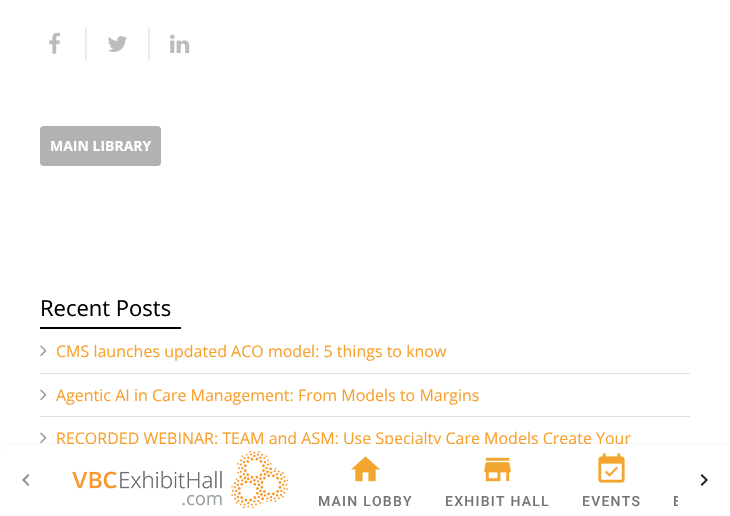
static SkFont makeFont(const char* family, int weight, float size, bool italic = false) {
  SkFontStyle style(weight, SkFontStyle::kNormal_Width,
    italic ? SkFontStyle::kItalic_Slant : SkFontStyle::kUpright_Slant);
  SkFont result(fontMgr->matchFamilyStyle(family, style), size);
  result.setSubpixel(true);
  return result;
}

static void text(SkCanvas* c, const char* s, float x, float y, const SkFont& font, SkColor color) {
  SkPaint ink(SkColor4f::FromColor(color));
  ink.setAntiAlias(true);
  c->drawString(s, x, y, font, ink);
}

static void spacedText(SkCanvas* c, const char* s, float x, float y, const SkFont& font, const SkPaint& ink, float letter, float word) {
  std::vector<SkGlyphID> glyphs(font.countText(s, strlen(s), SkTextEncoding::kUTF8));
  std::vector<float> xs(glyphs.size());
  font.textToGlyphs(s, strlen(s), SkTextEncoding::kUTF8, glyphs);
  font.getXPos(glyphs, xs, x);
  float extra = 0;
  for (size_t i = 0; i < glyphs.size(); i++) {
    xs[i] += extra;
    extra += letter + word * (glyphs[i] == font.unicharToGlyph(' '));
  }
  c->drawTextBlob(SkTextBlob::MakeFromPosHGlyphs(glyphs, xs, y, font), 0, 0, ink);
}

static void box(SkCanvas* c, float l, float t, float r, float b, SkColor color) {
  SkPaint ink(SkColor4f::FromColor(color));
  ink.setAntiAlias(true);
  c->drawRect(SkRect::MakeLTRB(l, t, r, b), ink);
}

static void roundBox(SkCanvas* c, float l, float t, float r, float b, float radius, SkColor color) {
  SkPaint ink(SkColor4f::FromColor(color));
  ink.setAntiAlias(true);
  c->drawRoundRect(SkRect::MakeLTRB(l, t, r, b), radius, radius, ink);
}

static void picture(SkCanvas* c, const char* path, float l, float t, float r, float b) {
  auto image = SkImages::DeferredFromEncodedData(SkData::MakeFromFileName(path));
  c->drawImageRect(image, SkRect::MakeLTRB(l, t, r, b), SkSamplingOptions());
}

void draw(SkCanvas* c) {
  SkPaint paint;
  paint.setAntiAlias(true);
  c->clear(0xffffffff);
  box(c, 85, 28, 87, 60, 0xffebebeb);
  picture(c, "img_01.png", 49, 32, 60, 54);
  box(c, 148, 28, 150, 60, 0xffebebeb);
  picture(c, "img_02.png", 108, 36, 127, 52);
  picture(c, "img_03.png", 170, 34, 190, 53);
  roundBox(c, 40, 126, 161, 166, 4, 0xffb2b2b2);
  SkFont face1 = makeFont("Open Sans", 700, 14);
  text(c, "MAIN LIBRARY", 50, 151, face1, 0xffffffff);
  SkFont face2 = makeFont("Open Sans", 400, 22);
  text(c, "Recent Posts", 40, 316, face2, 0xff000000);
  box(c, 40, 327, 181, 329, 0xff000000);
  box(c, 40, 373, 690, 374, 0xffdedede);
  picture(c, "img_04.png", 40, 345, 47, 356);
  SkFont face3 = makeFont("Open Sans", 400, 16);
  text(c, "CMS launches updated ACO model: 5 things to know", 56, 357, face3, 0xfff9a02c);
  box(c, 40, 416, 690, 417, 0xffdedede);
  picture(c, "img_04.png", 40, 389, 47, 400);
  text(c, "Agentic AI in Care Management: From Models to Margins", 56, 401, face3, 0xfff9a02c);
  picture(c, "img_04.png", 40, 432, 47, 443);
  text(c, "RECORDED WEBINAR: TEAM and ASM: Use Specialty Care Models Create Your", 56, 444, face3, 0xfff9a02c);
  paint.setColor(0x29000000);
  paint.setMaskFilter(SkMaskFilter::MakeBlur(kNormal_SkBlurStyle, 1.5f));
  c->drawRoundRect(SkRect::MakeLTRB(0, 445, 730, 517), 8, 8, paint);
  paint.setMaskFilter(nullptr);
  paint.setColor(0xffffffff);
  c->drawPath(SkPathBuilder().moveTo(8, 444).lineTo(722, 444).cubicTo(726.5f, 444, 730, 447.5f, 730, 452).lineTo(730, 516).lineTo(0, 516).lineTo(0, 452).cubicTo(0, 447.5f, 3.5f, 444, 8, 444).close().detach(), paint);
  c->drawPath(SkPathBuilder().moveTo(8, 444).lineTo(52, 444).lineTo(52, 516).lineTo(0, 516).lineTo(0, 452).cubicTo(0, 447.5f, 3.5f, 444, 8, 444).close().detach(), paint);
  picture(c, "img_05.png", 22, 474, 30, 486);
  picture(c, "img_06.png", 72, 451, 288, 508);
  picture(c, "img_07.png", 351, 456, 380, 482);
  SkFont face4 = makeFont("Roboto", 500, 14);
  paint.setColor(0xff757575);
  spacedText(c, "MAIN LOBBY", 318, 506, face4, paint, 1.25f, 0);
  picture(c, "img_08.png", 484, 457, 511, 482);
  spacedText(c, "EXHIBIT HALL", 445, 506, face4, paint, 1.25f, 0);
  picture(c, "img_09.png", 598, 453, 625, 483);
  spacedText(c, "EVENTS", 582, 506, face4, paint, 1.25f, 0);
  spacedText(c, "E", 673, 506, face4, paint, 1.25f, 0);
  paint.setColor(0xffffffff);
  c->drawPath(SkPathBuilder().moveTo(678, 444).lineTo(722, 444).cubicTo(726.5f, 444, 730, 447.5f, 730, 452).lineTo(730, 516).lineTo(678, 516).close().detach(), paint);
  picture(c, "img_10.png", 700, 474, 708, 486);
}
